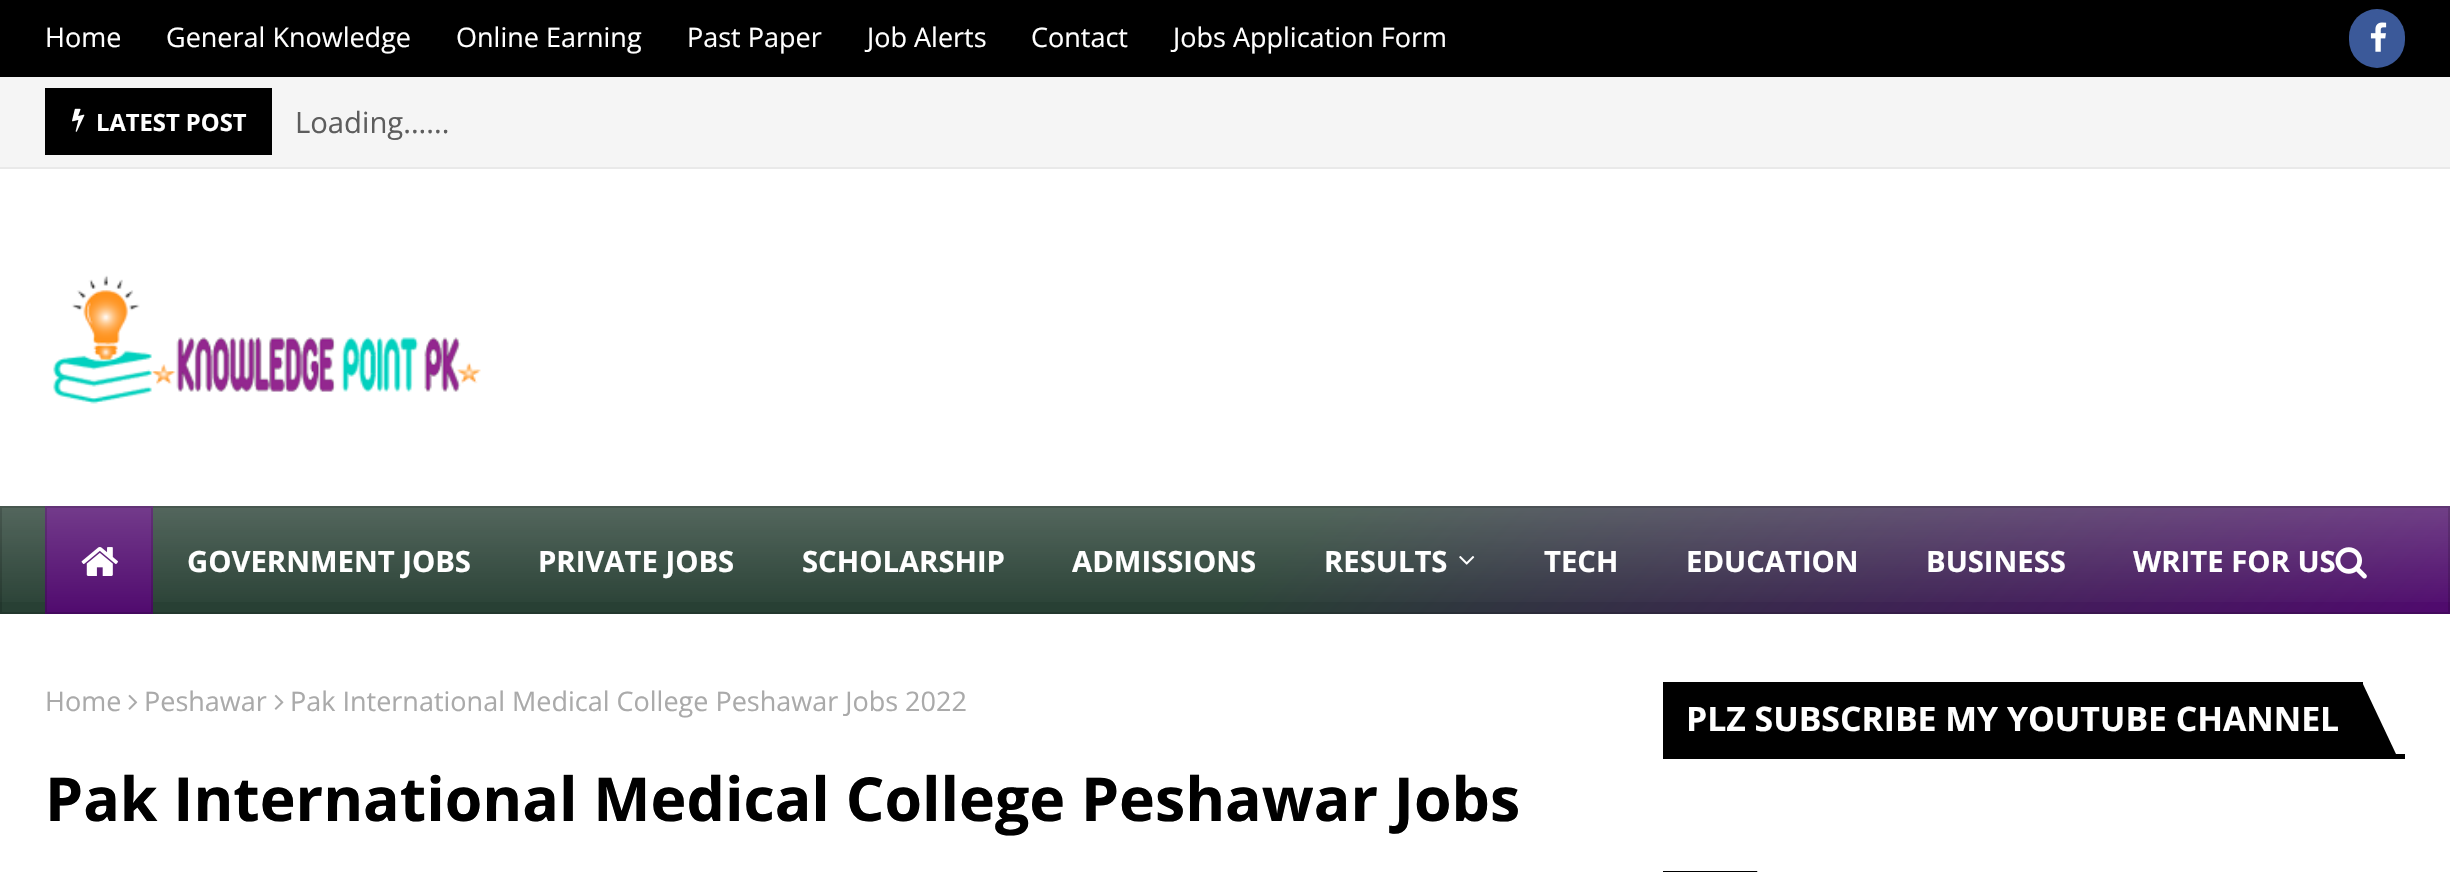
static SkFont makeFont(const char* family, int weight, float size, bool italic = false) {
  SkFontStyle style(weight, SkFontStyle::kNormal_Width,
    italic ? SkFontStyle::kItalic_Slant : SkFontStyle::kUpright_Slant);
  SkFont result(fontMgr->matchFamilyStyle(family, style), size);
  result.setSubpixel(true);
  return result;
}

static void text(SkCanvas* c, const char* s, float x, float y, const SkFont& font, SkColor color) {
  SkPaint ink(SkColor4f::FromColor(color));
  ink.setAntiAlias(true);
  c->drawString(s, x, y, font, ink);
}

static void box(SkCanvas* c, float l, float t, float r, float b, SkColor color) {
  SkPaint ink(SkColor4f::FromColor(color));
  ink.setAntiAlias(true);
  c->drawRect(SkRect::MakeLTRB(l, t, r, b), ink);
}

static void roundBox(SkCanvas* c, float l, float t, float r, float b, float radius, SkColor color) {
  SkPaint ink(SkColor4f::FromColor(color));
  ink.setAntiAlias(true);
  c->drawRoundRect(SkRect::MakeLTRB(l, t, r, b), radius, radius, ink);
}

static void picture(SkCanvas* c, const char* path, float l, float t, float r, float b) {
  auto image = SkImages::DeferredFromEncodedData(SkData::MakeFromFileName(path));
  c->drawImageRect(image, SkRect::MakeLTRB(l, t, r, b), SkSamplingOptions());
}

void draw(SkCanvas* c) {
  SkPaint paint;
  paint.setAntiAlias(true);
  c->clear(0xffffffff);
  box(c, 0, 0, 2450, 77, 0xff000000);
  SkFont face1 = makeFont("Open Sans", 400, 27);
  text(c, "Home", 45, 47, face1, 0xffffffff);
  text(c, "General Knowledge", 166, 47, face1, 0xffffffff);
  text(c, "Online Earning", 456, 47, face1, 0xffffffff);
  text(c, "Past Paper", 687, 47, face1, 0xffffffff);
  text(c, "Job Alerts", 867, 47, face1, 0xffffffff);
  text(c, "Contact", 1031, 47, face1, 0xffffffff);
  text(c, "Jobs Application Form", 1173, 47, face1, 0xffffffff);
  roundBox(c, 2349, 9, 2405, 68, 28, 0xff3b5999);
  picture(c, "img_01.png", 2370, 22, 2387, 52);
  box(c, 0, 77, 2450, 167, 0xfff5f5f5);
  box(c, 0, 167, 2450, 169, 0xffe9e9e9);
  box(c, 45, 88, 272, 155, 0xff000000);
  picture(c, "img_02.png", 72, 108, 85, 132);
  SkFont face2 = makeFont("Open Sans", 700, 23.75f);
  text(c, "LATEST POST", 96, 131, face2, 0xffffffff);
  SkFont face3 = makeFont("Open Sans", 400, 29.25f);
  text(c, "Loading......", 295, 133, face3, 0xff5d5d5d);
  picture(c, "img_03.png", 53, 275, 481, 404);
  {
    const SkColor colors[] = {0xff284034, 0xff500a6e};
    const float stops[] = {0.52f, 1};
    const SkPoint ends[] = {{586, -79}, {1865, 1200}};
    paint.setShader(SkGradientShader::MakeLinear(ends, colors, stops, 2, SkTileMode::kClamp));
    paint.setAlpha(255);
  }
  c->drawRect(SkRect::MakeLTRB(0, 506, 2450, 614), paint);
  {
    const SkColor colors[] = {0x33ffffff, 0x00ffffff};
    const float stops[] = {0, 1};
    const SkPoint ends[] = {{1225, 506}, {1225, 614}};
    paint.setShader(SkGradientShader::MakeLinear(ends, colors, stops, 2, SkTileMode::kClamp));
    paint.setAlpha(255);
  }
  c->drawRect(SkRect::MakeLTRB(0, 506, 2450, 602), paint);
  paint.setStyle(SkPaint::kStroke_Style);
  paint.setStrokeWidth(2);
  paint.setShader(nullptr);
  paint.setColor(0x26000000);
  c->drawRect(SkRect::MakeLTRB(1, 507, 2449, 613), paint);
  paint.setStyle(SkPaint::kFill_Style);
  {
    const SkColor colors[] = {0xff733b8b, 0xff500a6e};
    const float stops[] = {0, 1};
    const SkPoint ends[] = {{99, 506}, {99, 614}};
    paint.setShader(SkGradientShader::MakeLinear(ends, colors, stops, 2, SkTileMode::kClamp));
    paint.setAlpha(255);
  }
  c->drawRect(SkRect::MakeLTRB(45, 506, 153, 614), paint);
  paint.setStyle(SkPaint::kStroke_Style);
  paint.setShader(nullptr);
  paint.setColor(0x26000000);
  c->drawRect(SkRect::MakeLTRB(46, 507, 152, 613), paint);
  picture(c, "img_04.png", 81, 547, 118, 576);
  SkFont face4 = makeFont("Open Sans", 700, 29.25f);
  text(c, "GOVERNMENT JOBS", 187, 572, face4, 0xffffffff);
  text(c, "PRIVATE JOBS", 538, 572, face4, 0xffffffff);
  text(c, "SCHOLARSHIP", 802, 572, face4, 0xffffffff);
  text(c, "ADMISSIONS", 1072, 572, face4, 0xffffffff);
  text(c, "RESULTS", 1324, 572, face4, 0xffffffff);
  picture(c, "img_05.png", 1459, 556, 1475, 565);
  text(c, "TECH", 1544, 572, face4, 0xffffffff);
  text(c, "EDUCATION", 1686, 572, face4, 0xffffffff);
  text(c, "BUSINESS", 1926, 572, face4, 0xffffffff);
  text(c, "WRITE FOR US", 2133, 572, face4, 0xffffffff);
  picture(c, "img_06.png", 2335, 547, 2367, 579);
  text(c, "Home", 45, 711, face1, 0xffaaaaaa);
  picture(c, "img_07.png", 128, 694, 138, 710);
  text(c, "Peshawar", 144, 711, face1, 0xffaaaaaa);
  picture(c, "img_08.png", 274, 694, 284, 710);
  text(c, "Pak International Medical College Peshawar Jobs 2022", 290, 711, face1, 0xffaaaaaa);
  SkFont face5 = makeFont("Open Sans", 700, 60.75f);
  text(c, "Pak International Medical College Peshawar Jobs", 45, 821, face5, 0xff000000);
  box(c, 1663, 754, 2405, 759, 0xff000000);
  box(c, 1663, 682, 2363, 754, 0xff000000);
  SkFont face6 = makeFont("Open Sans", 700, 33.75f);
  text(c, "PLZ SUBSCRIBE MY YOUTUBE CHANNEL", 1686, 731, face6, 0xffffffff);
  paint.setStyle(SkPaint::kFill_Style);
  paint.setColor(0xff000000);
  c->drawPath(SkPathBuilder().moveTo(2362, 754).lineTo(2362, 682).lineTo(2396, 754).close().detach(), paint);
  box(c, 1663, 871, 1757, 872, 0xff000000);
  c->drawPath(SkPathBuilder().moveTo(1757, 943).lineTo(1757, 871).lineTo(1791, 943).close().detach(), paint);
}
